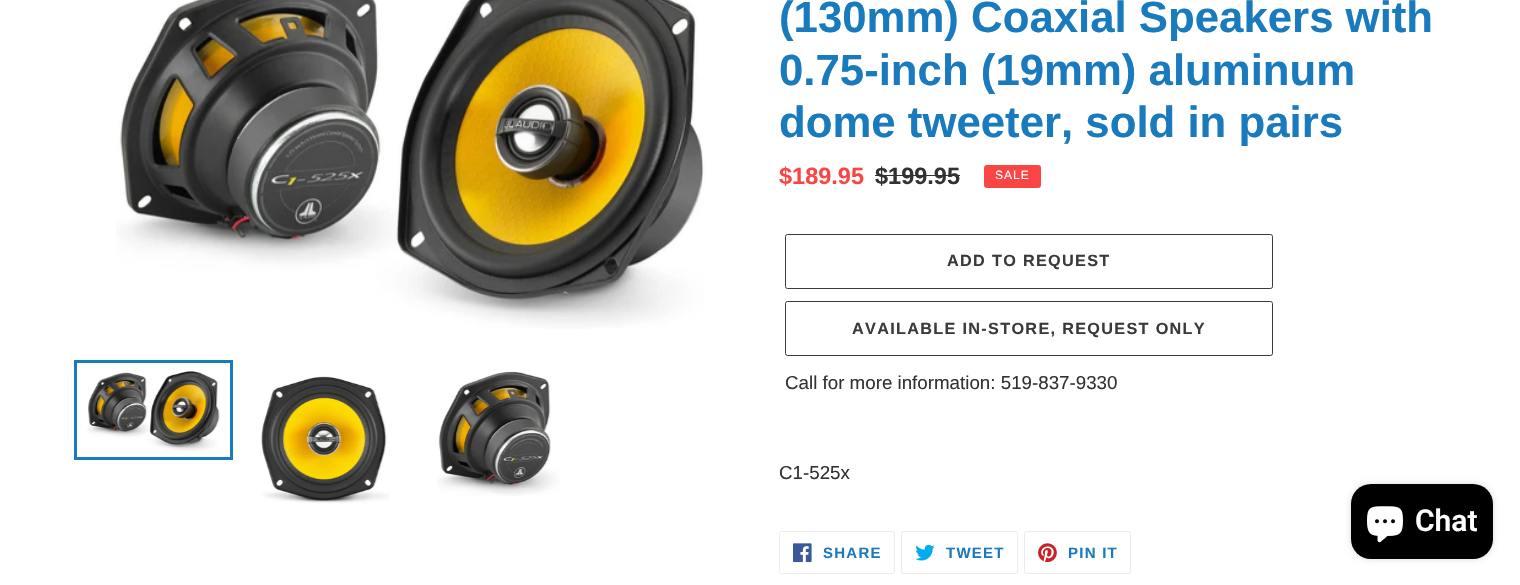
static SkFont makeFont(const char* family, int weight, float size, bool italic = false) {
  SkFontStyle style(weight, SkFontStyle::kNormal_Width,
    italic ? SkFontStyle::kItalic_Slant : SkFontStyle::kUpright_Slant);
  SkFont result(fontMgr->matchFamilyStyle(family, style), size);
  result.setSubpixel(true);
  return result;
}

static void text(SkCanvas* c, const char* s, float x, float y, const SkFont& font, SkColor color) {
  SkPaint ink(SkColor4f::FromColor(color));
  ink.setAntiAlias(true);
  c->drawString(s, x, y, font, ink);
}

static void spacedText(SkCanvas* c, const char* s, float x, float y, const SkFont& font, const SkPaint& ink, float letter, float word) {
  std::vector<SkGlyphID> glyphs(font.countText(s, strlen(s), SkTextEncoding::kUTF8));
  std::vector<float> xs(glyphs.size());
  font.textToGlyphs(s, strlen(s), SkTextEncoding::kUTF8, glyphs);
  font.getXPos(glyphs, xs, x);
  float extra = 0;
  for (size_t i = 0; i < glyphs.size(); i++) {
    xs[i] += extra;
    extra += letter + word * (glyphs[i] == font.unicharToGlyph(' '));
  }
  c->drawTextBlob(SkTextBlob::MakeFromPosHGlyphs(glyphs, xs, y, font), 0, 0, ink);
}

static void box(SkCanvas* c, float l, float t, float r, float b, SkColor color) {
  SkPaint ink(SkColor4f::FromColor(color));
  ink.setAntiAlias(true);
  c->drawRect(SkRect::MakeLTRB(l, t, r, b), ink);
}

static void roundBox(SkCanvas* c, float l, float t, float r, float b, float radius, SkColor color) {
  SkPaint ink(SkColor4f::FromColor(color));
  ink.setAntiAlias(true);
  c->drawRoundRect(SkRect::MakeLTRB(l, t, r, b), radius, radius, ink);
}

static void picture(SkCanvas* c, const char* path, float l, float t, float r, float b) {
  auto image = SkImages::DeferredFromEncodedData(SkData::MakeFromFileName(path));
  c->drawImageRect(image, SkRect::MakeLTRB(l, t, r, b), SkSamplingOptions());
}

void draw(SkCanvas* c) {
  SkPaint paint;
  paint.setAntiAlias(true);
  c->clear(0xffffffff);
  picture(c, "img_01.png", 116, 0, 706, 329);
  paint.setStyle(SkPaint::kStroke_Style);
  paint.setStrokeWidth(3);
  paint.setColor(0xff197bbd);
  c->drawRect(SkRect::MakeLTRB(75.5f, 361.5f, 231.5f, 458.5f), paint);
  picture(c, "img_02.png", 87, 371, 220, 451);
  picture(c, "img_03.png", 261, 375, 390, 504);
  picture(c, "img_04.png", 437, 370, 560, 496);
  SkFont face1 = makeFont("Liberation Sans", 700, 43.75f);
  text(c, "(130mm) Coaxial Speakers with", 779, 32, face1, 0xff197bbd);
  text(c, "0.75-inch (19mm) aluminum", 779, 85, face1, 0xff197bbd);
  text(c, "dome tweeter, sold in pairs", 779, 137, face1, 0xff197bbd);
  SkFont face2 = makeFont("Liberation Sans", 700, 23.5f);
  text(c, "$189.95", 779, 184, face2, 0xfffa4545);
  text(c, "$199.95", 875, 184, face2, 0xff333232);
  box(c, 875, 175, 960, 176, 0xff333232);
  paint.setStyle(SkPaint::kFill_Style);
  paint.setColor(0xfffa4545);
  c->drawRoundRect(SkRect::MakeLTRB(984.5f, 165.5f, 1040.5f, 187.5f), 2, 2, paint);
  paint.setStyle(SkPaint::kStroke_Style);
  paint.setStrokeWidth(1);
  c->drawRoundRect(SkRect::MakeLTRB(984.5f, 165.5f, 1040.5f, 187.5f), 2, 2, paint);
  SkFont face3 = makeFont("Liberation Sans", 400, 12);
  paint.setStyle(SkPaint::kFill_Style);
  paint.setColor(0xffffffff);
  spacedText(c, "SALE", 995, 179, face3, paint, 1, 0);
  paint.setStyle(SkPaint::kStroke_Style);
  paint.setColor(0xff3a3a3a);
  c->drawRoundRect(SkRect::MakeLTRB(785.5f, 234.5f, 1272.5f, 288.5f), 2, 2, paint);
  SkFont face4 = makeFont("Liberation Sans", 700, 16.25f);
  paint.setStyle(SkPaint::kFill_Style);
  spacedText(c, "ADD TO REQUEST", 947, 266, face4, paint, 1.3f, 0);
  paint.setStyle(SkPaint::kStroke_Style);
  c->drawRoundRect(SkRect::MakeLTRB(785.5f, 301.5f, 1272.5f, 355.5f), 2, 2, paint);
  paint.setStyle(SkPaint::kFill_Style);
  spacedText(c, "AVAILABLE IN-STORE, REQUEST ONLY", 852, 334, face4, paint, 1.3f, 0);
  SkFont face5 = makeFont("Liberation Sans", 400, 18.75f);
  text(c, "Call for more information: 519-837-9330", 785, 389, face5, 0xff333232);
  text(c, "C1-525x", 779, 479, face5, 0xff333232);
  paint.setStyle(SkPaint::kStroke_Style);
  paint.setColor(0xffebebeb);
  c->drawRoundRect(SkRect::MakeLTRB(779.5f, 531.5f, 894.5f, 573.5f), 2, 2, paint);
  picture(c, "img_05.png", 793, 543, 812, 563);
  SkFont face6 = makeFont("Liberation Sans", 700, 15);
  paint.setStyle(SkPaint::kFill_Style);
  paint.setColor(0xff197bbd);
  spacedText(c, "SHARE", 823, 558, face6, paint, 1.25f, 0);
  paint.setStyle(SkPaint::kStroke_Style);
  paint.setColor(0xffebebeb);
  c->drawRoundRect(SkRect::MakeLTRB(901.5f, 531.5f, 1017.5f, 573.5f), 2, 2, paint);
  picture(c, "img_06.png", 915, 544, 935, 561);
  paint.setStyle(SkPaint::kFill_Style);
  paint.setColor(0xff197bbd);
  spacedText(c, "TWEET", 946, 558, face6, paint, 1.25f, 0);
  paint.setStyle(SkPaint::kStroke_Style);
  paint.setColor(0xffebebeb);
  c->drawRoundRect(SkRect::MakeLTRB(1024.5f, 531.5f, 1130.5f, 573.5f), 2, 2, paint);
  picture(c, "img_07.png", 1038, 543, 1057, 563);
  paint.setStyle(SkPaint::kFill_Style);
  paint.setColor(0xff197bbd);
  spacedText(c, "PIN IT", 1068, 558, face6, paint, 1.25f, 0);
  paint.setColor(0x26000000);
  paint.setMaskFilter(SkMaskFilter::MakeBlur(kNormal_SkBlurStyle, 3));
  c->drawRoundRect(SkRect::MakeLTRB(1351, 484, 1493, 559), 20, 20, paint);
  paint.setMaskFilter(nullptr);
  roundBox(c, 1351, 484, 1493, 559, 20, 0xff000000);
  picture(c, "img_08.png", 1367, 506, 1403, 543);
  SkFont face7 = makeFont("Roboto", 600, 30);
  text(c, "Chat", 1415, 531, face7, 0xffffffff);
}
